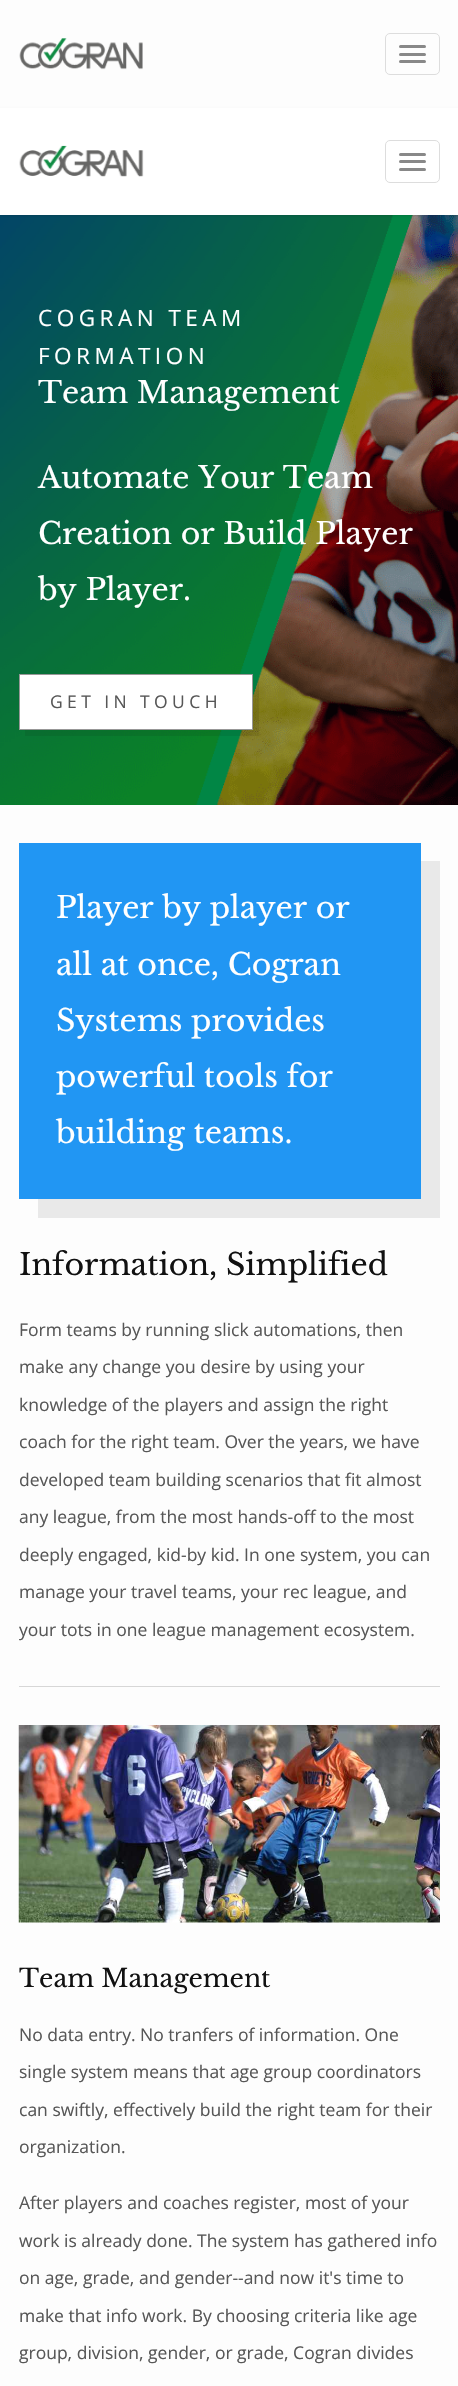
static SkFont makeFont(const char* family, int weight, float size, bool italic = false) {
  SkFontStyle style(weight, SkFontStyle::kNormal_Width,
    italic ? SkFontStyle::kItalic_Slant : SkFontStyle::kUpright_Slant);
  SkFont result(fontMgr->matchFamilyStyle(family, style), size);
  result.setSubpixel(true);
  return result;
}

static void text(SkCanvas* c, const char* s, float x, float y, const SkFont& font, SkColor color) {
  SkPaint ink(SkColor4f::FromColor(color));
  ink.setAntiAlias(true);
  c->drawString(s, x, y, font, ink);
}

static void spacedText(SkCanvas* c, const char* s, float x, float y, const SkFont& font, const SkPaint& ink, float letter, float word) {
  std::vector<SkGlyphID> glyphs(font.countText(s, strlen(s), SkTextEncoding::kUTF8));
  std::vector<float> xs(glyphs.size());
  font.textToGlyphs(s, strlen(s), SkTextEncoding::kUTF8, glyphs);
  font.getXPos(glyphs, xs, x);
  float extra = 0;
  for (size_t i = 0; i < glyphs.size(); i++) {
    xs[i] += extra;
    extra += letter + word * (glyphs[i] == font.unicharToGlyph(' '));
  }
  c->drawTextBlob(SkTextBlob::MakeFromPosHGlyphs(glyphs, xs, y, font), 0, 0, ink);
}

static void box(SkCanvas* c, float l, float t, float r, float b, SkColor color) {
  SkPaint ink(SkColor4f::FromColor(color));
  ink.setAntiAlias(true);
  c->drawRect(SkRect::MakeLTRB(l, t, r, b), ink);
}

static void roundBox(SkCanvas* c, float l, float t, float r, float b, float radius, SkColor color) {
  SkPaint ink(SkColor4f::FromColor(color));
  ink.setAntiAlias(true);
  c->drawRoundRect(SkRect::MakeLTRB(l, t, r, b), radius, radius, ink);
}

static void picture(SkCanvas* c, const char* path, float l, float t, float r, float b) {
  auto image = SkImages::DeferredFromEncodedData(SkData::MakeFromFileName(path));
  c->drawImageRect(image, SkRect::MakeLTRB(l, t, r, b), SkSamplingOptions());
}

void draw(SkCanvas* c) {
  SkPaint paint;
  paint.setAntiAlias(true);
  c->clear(0xfffdfdfd);
  picture(c, "img_01.png", 19, 38, 143, 70);
  paint.setStyle(SkPaint::kStroke_Style);
  paint.setStrokeWidth(1);
  paint.setColor(0xffdddddd);
  c->drawRoundRect(SkRect::MakeLTRB(385.5f, 33.5f, 439.5f, 74.5f), 4.5f, 4.5f, paint);
  roundBox(c, 399, 45, 426, 48, 1.5f, 0xff888888);
  roundBox(c, 399, 53, 426, 56, 1.5f, 0xff888888);
  roundBox(c, 399, 60, 426, 63, 1.5f, 0xff888888);
  picture(c, "img_03.png", 0, 215, 458, 805);
  paint.setStyle(SkPaint::kFill_Style);
  paint.setColor(0x1c000000);
  paint.setMaskFilter(SkMaskFilter::MakeBlur(kNormal_SkBlurStyle, 1));
  c->drawRect(SkRect::MakeLTRB(0, 109, 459, 216), paint);
  paint.setMaskFilter(nullptr);
  box(c, 0, 108, 458, 215, 0xffffffff);
  picture(c, "img_02.png", 19, 145, 144, 177);
  paint.setStyle(SkPaint::kStroke_Style);
  paint.setColor(0xffdddddd);
  c->drawRoundRect(SkRect::MakeLTRB(385.5f, 140.5f, 439.5f, 182.5f), 4.5f, 4.5f, paint);
  roundBox(c, 399, 153, 426, 156, 1.5f, 0xff888888);
  roundBox(c, 399, 160, 426, 163, 1.5f, 0xff888888);
  roundBox(c, 399, 168, 426, 171, 1.5f, 0xff888888);
  SkFont face1 = makeFont("Open Sans", 400, 22.5f);
  paint.setStyle(SkPaint::kFill_Style);
  paint.setColor(0xffffffff);
  spacedText(c, "COGRAN TEAM", 38, 326, face1, paint, 4.5f, 0);
  spacedText(c, "FORMATION", 38, 364, face1, paint, 4.5f, 0);
  SkFont face2 = makeFont("Libre Baskerville", 400, 30);
  text(c, "Team Management", 38, 403, face2, 0xffffffff);
  text(c, "Automate Your Team", 38, 488, face2, 0xffffffff);
  text(c, "Creation or Build Player", 38, 544, face2, 0xffffffff);
  text(c, "by Player.", 38, 600, face2, 0xffffffff);
  paint.setColor(0x14000000);
  c->drawPath(SkPathBuilder().moveTo(25, 730).lineTo(25, 736).lineTo(259, 736).lineTo(259, 680).lineTo(252, 680).lineTo(252, 730).close().detach(), paint);
  paint.setColor(0xffffffff);
  c->drawRect(SkRect::MakeLTRB(19.5f, 674.5f, 252.5f, 729.5f), paint);
  paint.setStyle(SkPaint::kStroke_Style);
  paint.setColor(0xff979797);
  c->drawRect(SkRect::MakeLTRB(19.5f, 674.5f, 252.5f, 729.5f), paint);
  SkFont face3 = makeFont("Open Sans", 400, 17.5f);
  paint.setStyle(SkPaint::kFill_Style);
  paint.setColor(0xff575757);
  spacedText(c, "GET IN TOUCH", 50, 708, face3, paint, 4.4f, 0);
  paint.setColor(0xffe9e9e9);
  c->drawPath(SkPathBuilder().moveTo(38, 1199).lineTo(38, 1218).lineTo(440, 1218).lineTo(440, 861).lineTo(421, 861).lineTo(421, 1199).close().detach(), paint);
  box(c, 19, 843, 421, 1199, 0xff2196f3);
  text(c, "Player by player or", 56, 918, face2, 0xffffffff);
  text(c, "all at once, Cogran", 56, 975, face2, 0xffffffff);
  text(c, "Systems provides", 56, 1031, face2, 0xffffffff);
  text(c, "powerful tools for", 56, 1087, face2, 0xffffffff);
  text(c, "building teams.", 56, 1143, face2, 0xffffffff);
  text(c, "Information, Simplified", 19, 1275, face2, 0xff111111);
  text(c, "Form teams by running slick automations, then", 19, 1336, face3, 0xff575757);
  text(c, "make any change you desire by using your", 19, 1373, face3, 0xff575757);
  text(c, "knowledge of the players and assign the right", 19, 1411, face3, 0xff575757);
  text(c, "coach for the right team. Over the years, we have", 19, 1448, face3, 0xff575757);
  text(c, "developed team building scenarios that fit almost", 19, 1486, face3, 0xff575757);
  text(c, "any league, from the most hands-off to the most", 19, 1523, face3, 0xff575757);
  text(c, "deeply engaged, kid-by kid. In one system, you can", 19, 1561, face3, 0xff575757);
  text(c, "manage your travel teams, your rec league, and", 19, 1598, face3, 0xff575757);
  text(c, "your tots in one league management ecosystem.", 19, 1636, face3, 0xff575757);
  box(c, 19, 1686, 440, 1687, 0xffd7d7d7);
  picture(c, "img_04.png", 18, 1725, 440, 1923);
  SkFont face4 = makeFont("Libre Baskerville", 400, 25);
  text(c, "Team Management", 19, 1987, face4, 0xff111111);
  text(c, "No data entry. No tranfers of information. One", 19, 2041, face3, 0xff575757);
  text(c, "single system means that age group coordinators", 19, 2078, face3, 0xff575757);
  text(c, "can swiftly, effectively build the right team for their", 19, 2116, face3, 0xff575757);
  text(c, "organization.", 19, 2153, face3, 0xff575757);
  text(c, "After players and coaches register, most of your", 19, 2209, face3, 0xff575757);
  text(c, "work is already done. The system has gathered info", 19, 2247, face3, 0xff575757);
  text(c, "on age, grade, and gender--and now it's time to", 19, 2284, face3, 0xff575757);
  text(c, "make that info work. By choosing criteria like age", 19, 2322, face3, 0xff575757);
  text(c, "group, division, gender, or grade, Cogran divides", 19, 2359, face3, 0xff575757);
}
